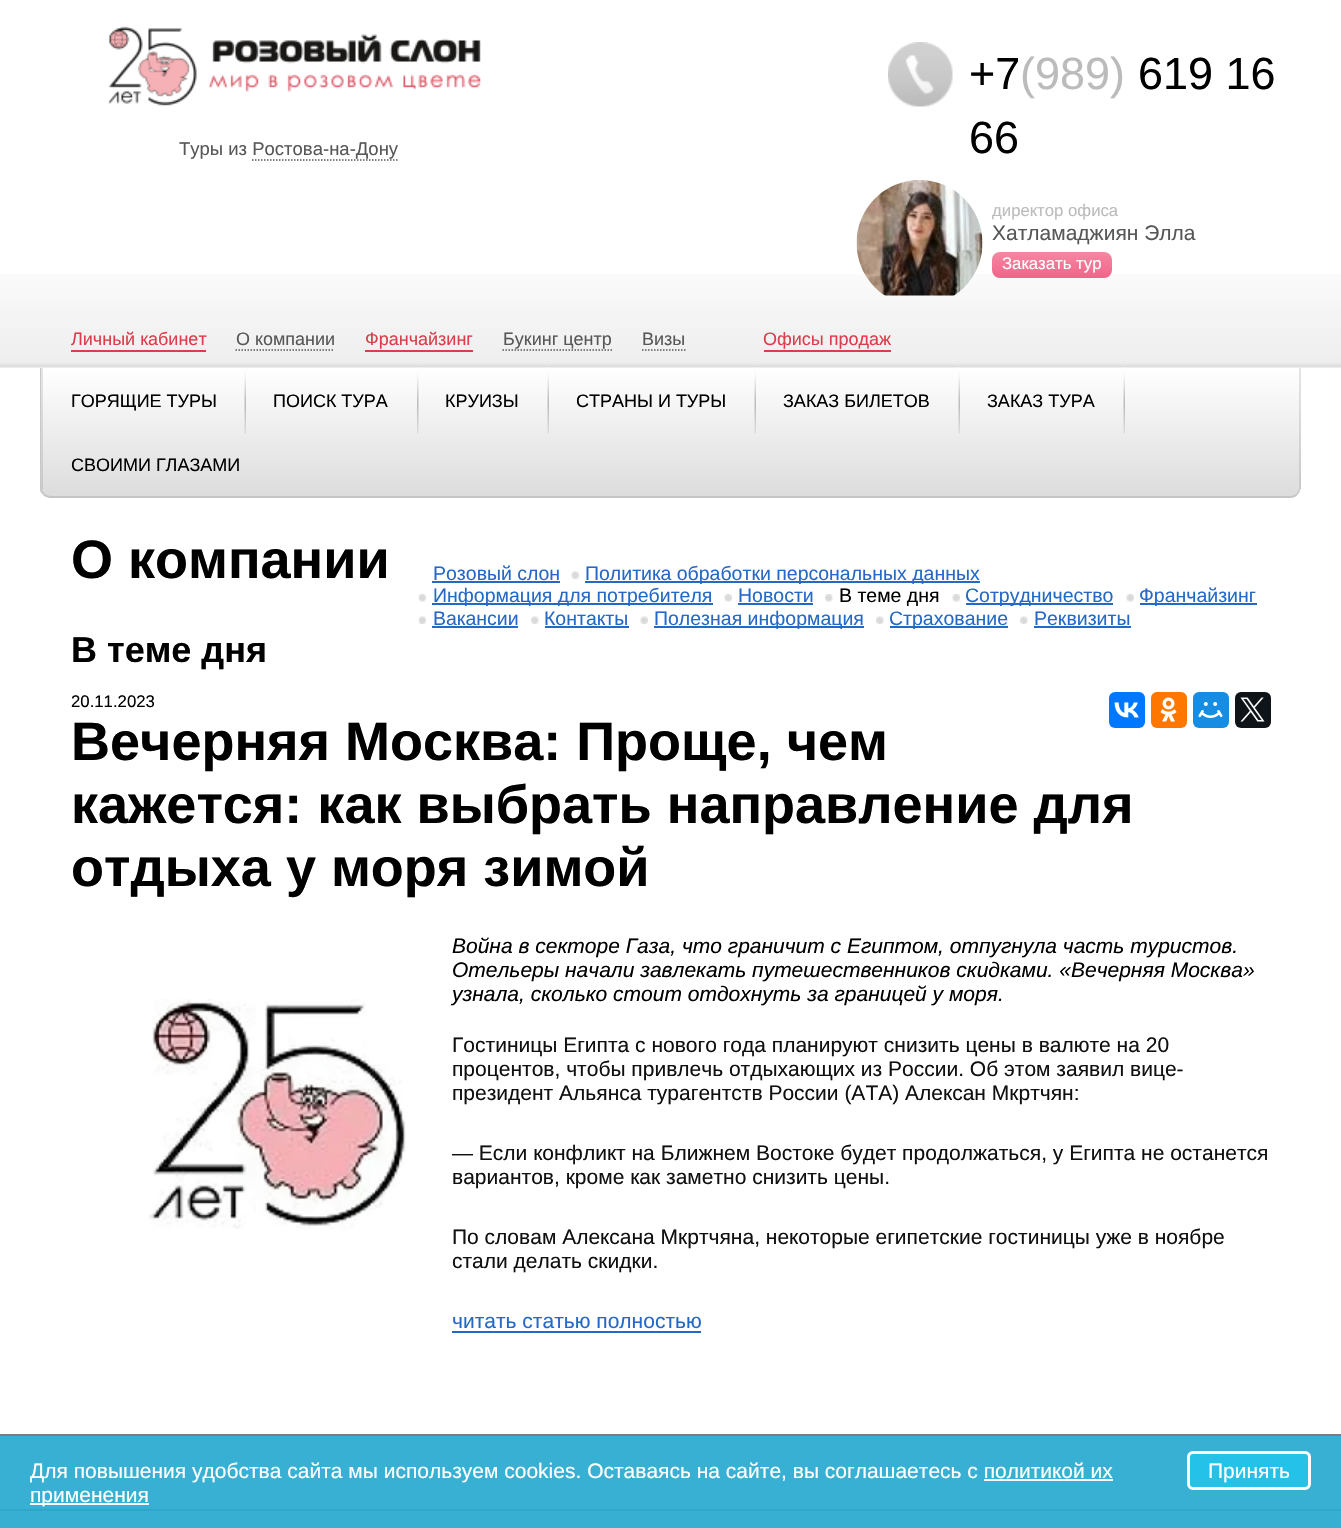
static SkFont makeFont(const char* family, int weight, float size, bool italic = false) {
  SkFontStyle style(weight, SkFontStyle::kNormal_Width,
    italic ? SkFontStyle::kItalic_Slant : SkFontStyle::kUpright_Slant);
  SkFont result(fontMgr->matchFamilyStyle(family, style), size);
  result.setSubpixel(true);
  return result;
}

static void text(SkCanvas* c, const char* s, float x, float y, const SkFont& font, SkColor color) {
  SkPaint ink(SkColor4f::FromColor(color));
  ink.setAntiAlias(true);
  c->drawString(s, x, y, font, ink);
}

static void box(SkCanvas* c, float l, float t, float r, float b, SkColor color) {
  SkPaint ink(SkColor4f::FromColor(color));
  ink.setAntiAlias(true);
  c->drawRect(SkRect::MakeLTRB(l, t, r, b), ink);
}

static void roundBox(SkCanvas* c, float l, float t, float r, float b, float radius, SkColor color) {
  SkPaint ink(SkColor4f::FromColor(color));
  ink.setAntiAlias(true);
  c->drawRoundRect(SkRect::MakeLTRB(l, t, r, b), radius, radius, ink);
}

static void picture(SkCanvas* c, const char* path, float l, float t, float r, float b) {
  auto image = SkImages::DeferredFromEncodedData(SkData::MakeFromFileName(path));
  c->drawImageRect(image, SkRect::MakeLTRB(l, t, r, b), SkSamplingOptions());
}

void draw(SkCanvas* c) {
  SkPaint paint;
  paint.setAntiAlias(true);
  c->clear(0xffffffff);
  box(c, 0, 1436, 1341, 1509, 0xff38b0d3);
  picture(c, "img_01.png", 0, 274, 1341, 368);
  picture(c, "img_02.png", 108, 26, 482, 106);
  SkFont face1 = makeFont("Liberation Sans", 400, 18.5f);
  text(c, "Туры из Ростова-на-Дону", 179, 155, face1, 0xff575757);
  paint.setStyle(SkPaint::kStroke_Style);
  paint.setStrokeWidth(1.5f);
  paint.setColor(0xff575757);
  paint.setPathEffect(SkDashPathEffect::Make({{1.5f, 1.5f}}, 0));
  c->drawPath(SkPathBuilder().moveTo(252, 160).lineTo(397.5f, 160).detach(), paint);
  paint.setPathEffect(nullptr);
  picture(c, "img_03.png", 888, 42, 953, 107);
  SkFont face2 = makeFont("Liberation Sans", 400, 45);
  text(c, "+7", 969, 89, face2, 0xff000000);
  text(c, "(989)", 1020, 89, face2, 0xffbbbbbb);
  text(c, "619 16", 1138, 89, face2, 0xff000000);
  text(c, "66", 969, 153, face2, 0xff000000);
  picture(c, "img_04.png", 856, 180, 983, 296);
  c->save();
  c->clipRect(SkRect::MakeLTRB(992, 180, 1301, 278));
  SkFont face3 = makeFont("Liberation Sans", 400, 16.75f);
  text(c, "директор офиса", 992, 216, face3, 0xffbbbbbb);
  c->restore();
  SkFont face4 = makeFont("Liberation Sans", 400, 21);
  text(c, "Хатламаджиян Элла", 992, 240, face4, 0xff575757);
  paint.setStyle(SkPaint::kFill_Style);
  {
    const SkColor colors[] = {0xfff588a4, 0xfff16488};
    const float stops[] = {0, 1};
    const SkPoint ends[] = {{1052, 252}, {1052, 278}};
    paint.setShader(SkGradientShader::MakeLinear(ends, colors, stops, 2, SkTileMode::kClamp));
    paint.setAlpha(255);
  }
  c->drawRoundRect(SkRect::MakeLTRB(992, 252, 1112, 278), 8, 8, paint);
  text(c, "Заказать тур", 1002, 269, face3, 0xffffffff);
  box(c, 71, 350, 206, 352, 0xffdc3c4b);
  SkFont face5 = makeFont("Liberation Sans", 400, 18);
  text(c, "Личный кабинет", 71, 345, face5, 0xffdc3c4b);
  paint.setStyle(SkPaint::kStroke_Style);
  paint.setShader(nullptr);
  paint.setColor(0xff575757);
  paint.setPathEffect(SkDashPathEffect::Make({{1.5f, 1.5f}}, 0));
  c->drawPath(SkPathBuilder().moveTo(235.5f, 350).lineTo(334.5f, 350).detach(), paint);
  paint.setPathEffect(nullptr);
  text(c, "О компании", 236, 345, face5, 0xff575757);
  box(c, 365, 350, 473, 352, 0xffdc3c4b);
  text(c, "Франчайзинг", 365, 345, face5, 0xffdc3c4b);
  paint.setPathEffect(SkDashPathEffect::Make({{1.5f, 1.5f}}, 0));
  c->drawPath(SkPathBuilder().moveTo(502.5f, 350).lineTo(612, 350).detach(), paint);
  paint.setPathEffect(nullptr);
  text(c, "Букинг центр", 503, 345, face5, 0xff575757);
  paint.setPathEffect(SkDashPathEffect::Make({{1.5f, 1.5f}}, 0));
  c->drawPath(SkPathBuilder().moveTo(642, 350).lineTo(685.5f, 350).detach(), paint);
  paint.setPathEffect(nullptr);
  text(c, "Визы", 642, 345, face5, 0xff575757);
  box(c, 764, 350, 891, 352, 0xffdc3c4b);
  text(c, "Офисы продаж", 763, 345, face5, 0xffdc3c4b);
  c->save();
  c->clipPath(SkPathBuilder().moveTo(41, 368).lineTo(1301, 368).lineTo(1301, 487).cubicTo(1301, 493, 1296, 498, 1290, 498).lineTo(52, 498).cubicTo(46, 498, 41, 493, 41, 487).close().detach(), true);
  paint.setStyle(SkPaint::kFill_Style);
  {
    const SkColor colors[] = {0xffffffff, 0xffdcdcdc};
    const float stops[] = {0, 1};
    const SkPoint ends[] = {{671, 367}, {671, 497}};
    paint.setShader(SkGradientShader::MakeLinear(ends, colors, stops, 2, SkTileMode::kClamp));
    paint.setAlpha(255);
  }
  c->drawRect(SkRect::MakeLTRB(42, 368, 1301, 497), paint);
  c->restore();
  paint.setShader(nullptr);
  paint.setColor(0xffc9c9c9);
  c->drawPath(SkPathBuilder().moveTo(1297, 495).cubicTo(1299, 493, 1300, 490, 1300, 488).lineTo(1300, 368).lineTo(1299, 368).lineTo(1299, 488).cubicTo(1299, 490, 1298, 492, 1296, 494).close().detach(), paint);
  paint.setColor(0xffc5c5c5);
  c->drawPath(SkPathBuilder().moveTo(51, 498).lineTo(1290, 498).cubicTo(1293, 498, 1296, 497, 1297, 495).lineTo(1296, 494).cubicTo(1295, 495, 1292, 496, 1290, 496).lineTo(51, 496).cubicTo(49, 496, 46, 495, 45, 494).lineTo(43, 495).cubicTo(45, 497, 48, 498, 51, 498).close().detach(), paint);
  paint.setColor(0xffc9c9c9);
  c->drawPath(SkPathBuilder().moveTo(42, 368).lineTo(42, 488).cubicTo(42, 490, 43, 492, 45, 494).lineTo(43, 495).lineTo(40, 491).lineTo(40, 368).close().detach(), paint);
  {
    const SkColor colors[] = {0xffe5e5e5, 0xffc9c9c9};
    const float stops[] = {0, 1};
    const SkPoint ends[] = {{41, 368}, {41, 489}};
    paint.setShader(SkGradientShader::MakeLinear(ends, colors, stops, 2, SkTileMode::kClamp));
    paint.setAlpha(255);
  }
  c->drawRect(SkRect::MakeLTRB(41, 368, 43, 489), paint);
  picture(c, "img_05.png", 244, 367, 246, 434);
  text(c, "ГОРЯЩИЕ ТУРЫ", 71, 407, face5, 0xff000000);
  picture(c, "img_06.png", 417, 367, 419, 434);
  text(c, "ПОИСК ТУРА", 273, 407, face5, 0xff000000);
  picture(c, "img_07.png", 547, 367, 549, 434);
  text(c, "КРУИЗЫ", 445, 407, face5, 0xff000000);
  picture(c, "img_07.png", 754, 367, 756, 434);
  text(c, "СТРАНЫ И ТУРЫ", 576, 407, face5, 0xff000000);
  picture(c, "img_07.png", 958, 367, 960, 434);
  text(c, "ЗАКАЗ БИЛЕТОВ", 783, 407, face5, 0xff000000);
  picture(c, "img_07.png", 1123, 367, 1125, 434);
  text(c, "ЗАКАЗ ТУРА", 987, 407, face5, 0xff000000);
  text(c, "СВОИМИ ГЛАЗАМИ", 71, 471, face5, 0xff000000);
  {
    const SkColor colors[] = {0xffe5e5e5, 0xffc9c9c9};
    const float stops[] = {0, 1};
    const SkPoint ends[] = {{1300, 368}, {1300, 489}};
    paint.setShader(SkGradientShader::MakeLinear(ends, colors, stops, 2, SkTileMode::kClamp));
    paint.setAlpha(255);
  }
  c->drawRect(SkRect::MakeLTRB(1299, 368, 1301, 489), paint);
  SkFont face6 = makeFont("Liberation Sans", 700, 54);
  text(c, "О компании", 71, 578, face6, 0xff000000);
  SkFont face7 = makeFont("Liberation Sans", 400, 19.5f);
  text(c, "Розовый слон", 433, 580, face7, 0xff2468c8);
  box(c, 432, 581, 560, 583, 0xff2468c8);
  picture(c, "img_08.png", 571, 571, 579, 579);
  box(c, 585, 581, 980, 583, 0xff2468c8);
  text(c, "Политика обработки персональных данных", 585, 580, face7, 0xff2468c8);
  picture(c, "img_09.png", 418, 594, 426, 602);
  box(c, 432, 603, 713, 605, 0xff2468c8);
  text(c, "Информация для потребителя", 433, 602, face7, 0xff2468c8);
  picture(c, "img_10.png", 724, 594, 732, 602);
  text(c, "Новости", 738, 602, face7, 0xff2468c8);
  box(c, 738, 603, 813, 605, 0xff2468c8);
  picture(c, "img_11.png", 825, 594, 833, 602);
  text(c, "В теме дня", 839, 602, face7, 0xff000000);
  picture(c, "img_12.png", 952, 594, 960, 602);
  box(c, 966, 603, 1113, 605, 0xff2468c8);
  text(c, "Сотрудничество", 965, 602, face7, 0xff2468c8);
  picture(c, "img_10.png", 1126, 594, 1134, 602);
  box(c, 1140, 603, 1257, 605, 0xff2468c8);
  text(c, "Франчайзинг", 1139, 602, face7, 0xff2468c8);
  picture(c, "img_13.png", 418, 616, 426, 624);
  text(c, "Вакансии", 433, 625, face7, 0xff2468c8);
  box(c, 432, 626, 518, 628, 0xff2468c8);
  picture(c, "img_14.png", 531, 616, 539, 624);
  text(c, "Контакты", 544, 625, face7, 0xff2468c8);
  box(c, 545, 626, 629, 628, 0xff2468c8);
  picture(c, "img_08.png", 640, 616, 648, 624);
  box(c, 654, 626, 864, 628, 0xff2468c8);
  text(c, "Полезная информация", 654, 625, face7, 0xff2468c8);
  picture(c, "img_15.png", 876, 616, 884, 624);
  box(c, 890, 626, 1008, 628, 0xff2468c8);
  text(c, "Страхование", 889, 625, face7, 0xff2468c8);
  picture(c, "img_16.png", 1020, 616, 1028, 624);
  text(c, "Реквизиты", 1034, 625, face7, 0xff2468c8);
  box(c, 1034, 626, 1131, 628, 0xff2468c8);
  SkFont face8 = makeFont("Liberation Sans", 700, 36);
  text(c, "В теме дня", 71, 662, face8, 0xff000000);
  text(c, "20.11.2023", 71, 707, face3, 0xff000000);
  roundBox(c, 1109, 692, 1145, 728, 6, 0xff0077ff);
  picture(c, "img_17.png", 1114, 702, 1139, 718);
  roundBox(c, 1151, 692, 1187, 728, 6, 0xffff7700);
  picture(c, "img_18.png", 1160, 697, 1177, 722);
  roundBox(c, 1193, 692, 1229, 728, 6, 0xff168de2);
  picture(c, "img_19.png", 1198, 702, 1223, 718);
  roundBox(c, 1235, 692, 1271, 728, 6, 0xff0f1419);
  picture(c, "img_20.png", 1240, 697, 1265, 722);
  text(c, "Вечерняя Москва: Проще, чем", 71, 760, face6, 0xff000000);
  text(c, "кажется: как выбрать направление для", 71, 823, face6, 0xff000000);
  text(c, "отдыха у моря зимой", 71, 886, face6, 0xff000000);
  SkFont face9 = makeFont("Liberation Sans", 400, 21, true);
  text(c, "Война в секторе Газа, что граничит с Египтом, отпугнула часть туристов.", 452, 953, face9, 0xff000000);
  text(c, "Отельеры начали завлекать путешественников скидками. «Вечерняя Москва»", 452, 977, face9, 0xff000000);
  text(c, "узнала, сколько стоит отдохнуть за границей у моря.", 452, 1001, face9, 0xff000000);
  picture(c, "img_21.png", 148, 999, 406, 1230);
  text(c, "Гостиницы Египта с нового года планируют снизить цены в валюте на 20", 452, 1052, face4, 0xff111010);
  text(c, "процентов, чтобы привлечь отдыхающих из России. Об этом заявил вице-", 452, 1076, face4, 0xff111010);
  text(c, "президент Альянса турагентств России (АТА) Алексан Мкртчян:", 452, 1100, face4, 0xff111010);
  text(c, "— Если конфликт на Ближнем Востоке будет продолжаться, у Египта не останется", 452, 1160, face4, 0xff111010);
  text(c, "вариантов, кроме как заметно снизить цены.", 452, 1184, face4, 0xff111010);
  text(c, "По словам Алексана Мкртчяна, некоторые египетские гостиницы уже в ноябре", 452, 1244, face4, 0xff111010);
  text(c, "стали делать скидки.", 452, 1268, face4, 0xff111010);
  text(c, "читать статью полностью", 452, 1328, face4, 0xff2468c8);
  box(c, 452, 1331, 701, 1333, 0xff2468c8);
  box(c, 0, 1511, 1341, 1528, 0xff37afd2);
  box(c, 0, 1509, 1341, 1511, 0xff2fa6ca);
  box(c, 0, 1434, 1341, 1436, 0xff7c7c7c);
  text(c, "Для повышения удобства сайта мы используем cookies. Оставаясь на сайте, вы соглашаетесь с политикой их", 30, 1478, face4, 0xffffffff);
  box(c, 30, 1503, 149, 1505, 0xffffffff);
  text(c, "применения", 30, 1502, face4, 0xffffffff);
  box(c, 984, 1479, 1113, 1481, 0xffffffff);
  paint.setShader(nullptr);
  paint.setColor(0xff24c2e8);
  c->drawRoundRect(SkRect::MakeLTRB(1188.5f, 1452.5f, 1309.5f, 1488.5f), 4.5f, 4.5f, paint);
  paint.setStyle(SkPaint::kStroke_Style);
  paint.setStrokeWidth(3);
  paint.setColor(0xffffffff);
  c->drawRoundRect(SkRect::MakeLTRB(1188.5f, 1452.5f, 1309.5f, 1488.5f), 4.5f, 4.5f, paint);
  text(c, "Принять", 1208, 1478, face4, 0xffffffff);
}
